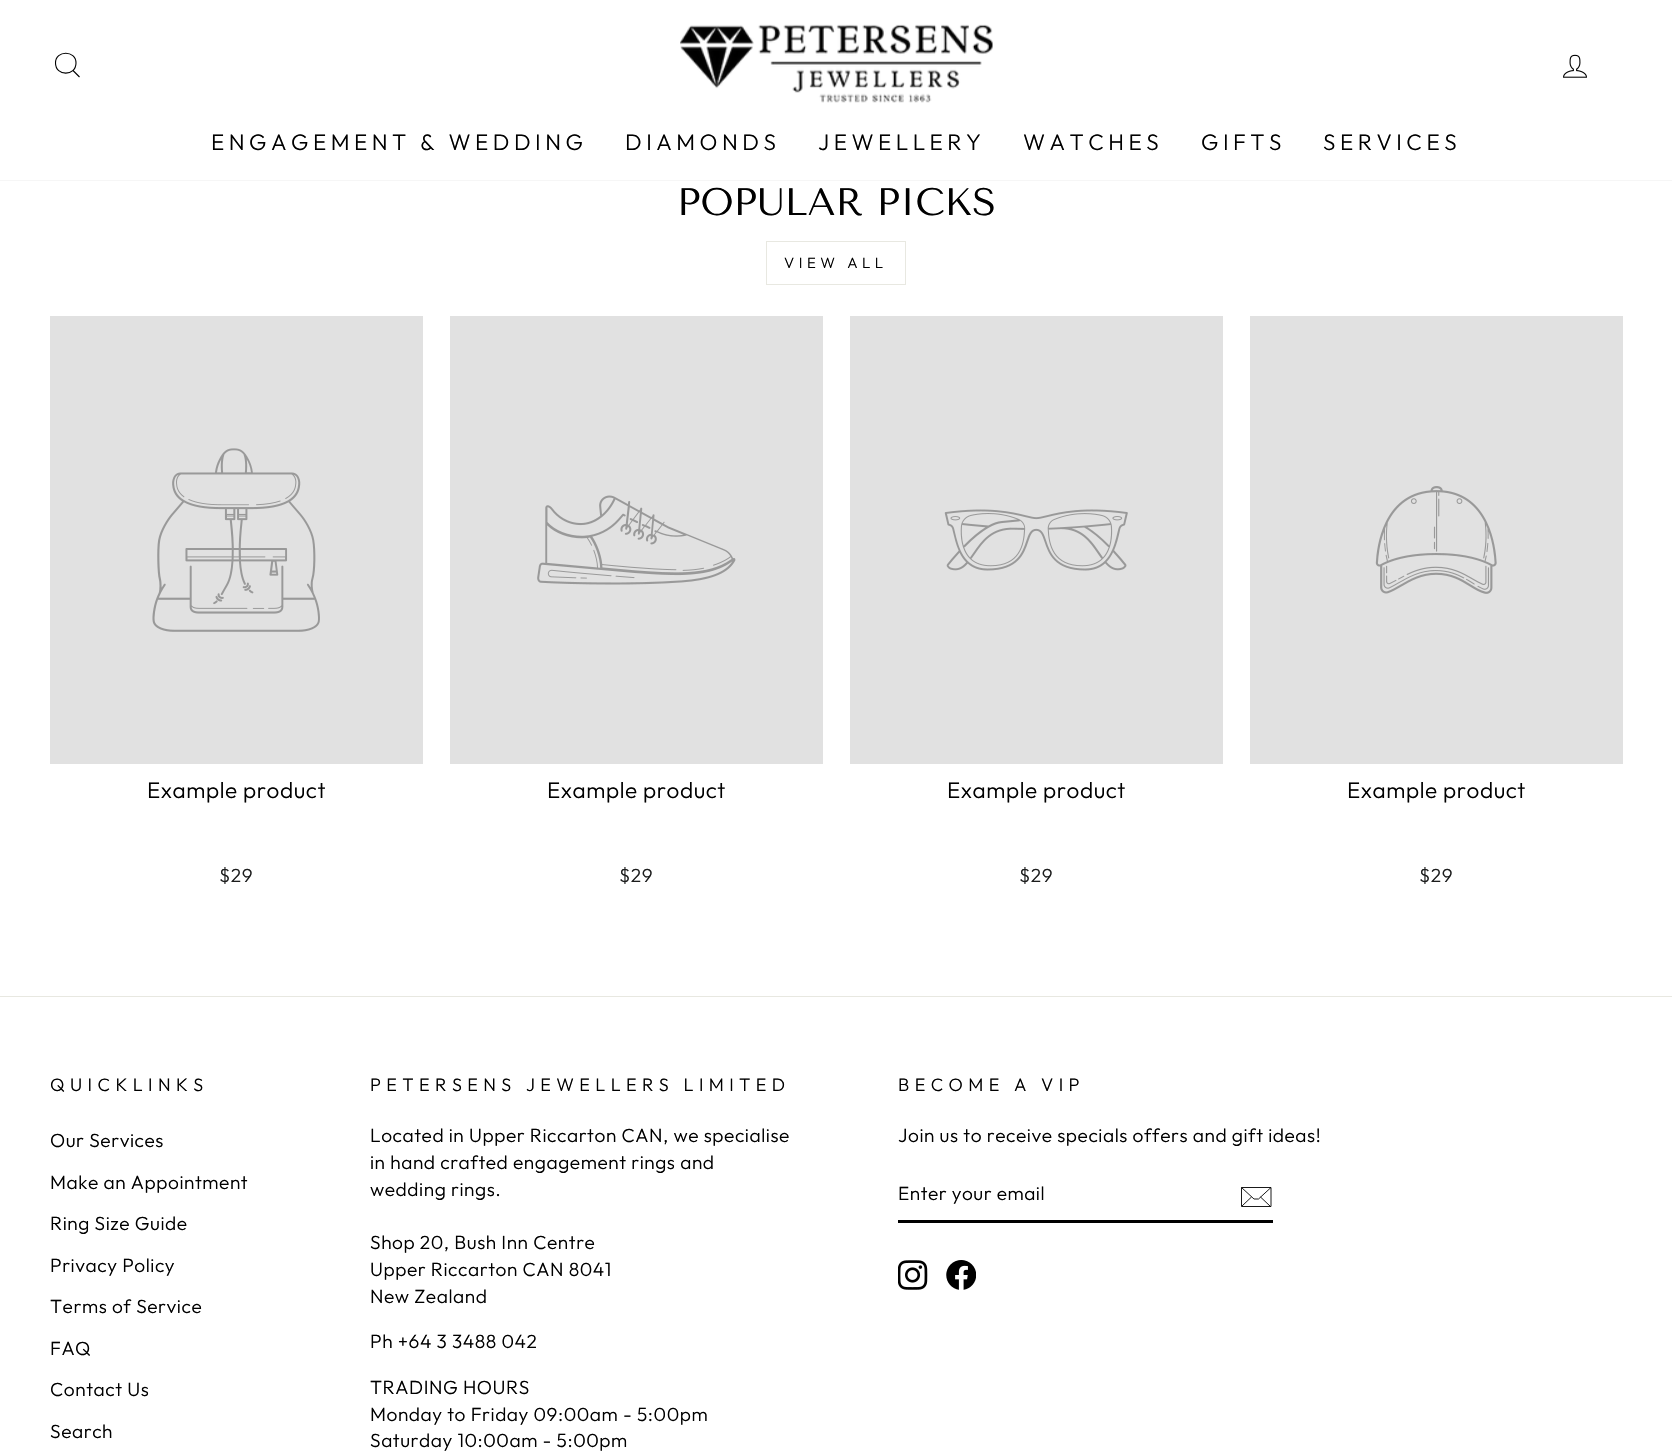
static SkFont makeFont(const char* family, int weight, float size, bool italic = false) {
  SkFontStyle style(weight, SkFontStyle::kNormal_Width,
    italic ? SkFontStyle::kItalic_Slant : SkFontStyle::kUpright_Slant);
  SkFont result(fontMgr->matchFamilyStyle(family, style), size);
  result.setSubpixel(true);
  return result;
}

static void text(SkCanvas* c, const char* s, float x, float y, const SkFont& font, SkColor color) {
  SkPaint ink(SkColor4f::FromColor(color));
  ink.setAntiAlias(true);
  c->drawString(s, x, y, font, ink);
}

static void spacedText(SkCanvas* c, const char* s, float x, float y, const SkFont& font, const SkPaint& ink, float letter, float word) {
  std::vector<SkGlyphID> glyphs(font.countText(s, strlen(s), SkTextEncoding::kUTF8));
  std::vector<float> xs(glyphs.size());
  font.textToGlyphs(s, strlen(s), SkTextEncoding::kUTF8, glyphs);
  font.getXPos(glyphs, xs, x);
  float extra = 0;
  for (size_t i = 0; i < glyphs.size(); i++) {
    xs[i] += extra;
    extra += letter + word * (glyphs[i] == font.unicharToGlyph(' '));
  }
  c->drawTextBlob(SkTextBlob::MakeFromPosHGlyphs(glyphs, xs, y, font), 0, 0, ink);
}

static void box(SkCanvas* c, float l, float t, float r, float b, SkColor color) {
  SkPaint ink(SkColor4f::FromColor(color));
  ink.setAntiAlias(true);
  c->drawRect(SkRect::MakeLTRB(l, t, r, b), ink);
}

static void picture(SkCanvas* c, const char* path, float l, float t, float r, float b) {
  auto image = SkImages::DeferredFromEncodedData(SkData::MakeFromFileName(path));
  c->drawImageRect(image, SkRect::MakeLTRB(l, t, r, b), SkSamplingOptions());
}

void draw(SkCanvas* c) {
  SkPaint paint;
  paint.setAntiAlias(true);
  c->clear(0xffffffff);
  paint.setColor(0x33000000);
  paint.setMaskFilter(SkMaskFilter::MakeBlur(kNormal_SkBlurStyle, 0.5f));
  c->drawRect(SkRect::MakeLTRB(0, 0, 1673, 180), paint);
  paint.setMaskFilter(nullptr);
  box(c, 0, 0, 1672, 180, 0xffffffff);
  paint.setStyle(SkPaint::kStroke_Style);
  paint.setStrokeWidth(1.1f);
  paint.setColor(0xff000000);
  c->drawPath(SkPathBuilder().moveTo(76, 63).cubicTo(76, 76.5f, 55.5f, 76.5f, 55.5f, 63).cubicTo(55.5f, 50, 76, 50, 76, 63).close().moveTo(79.5f, 77).lineTo(73, 70.5f).detach(), paint);
  picture(c, "img_01.png", 680, 24, 993, 103);
  picture(c, "img_02.png", 1563, 54, 1587, 78);
  SkFont face1 = makeFont("Outfit", 300, 22.5f);
  paint.setStyle(SkPaint::kFill_Style);
  spacedText(c, "ENGAGEMENT & WEDDING", 211, 150, face1, paint, 4.5f, 0);
  spacedText(c, "DIAMONDS", 625, 150, face1, paint, 4.5f, 0);
  spacedText(c, "JEWELLERY", 818, 150, face1, paint, 4.5f, 0);
  spacedText(c, "WATCHES", 1023, 150, face1, paint, 4.5f, 0);
  spacedText(c, "GIFTS", 1201, 150, face1, paint, 4.5f, 0);
  spacedText(c, "SERVICES", 1323, 150, face1, paint, 4.5f, 0);
  SkFont face2 = makeFont("Tenor Sans", 400, 38.25f);
  text(c, "POPULAR PICKS", 677, 215, face2, 0xff000000);
  paint.setStyle(SkPaint::kStroke_Style);
  paint.setStrokeWidth(1);
  paint.setColor(0xffe8e8e1);
  c->drawRect(SkRect::MakeLTRB(766.5f, 241.5f, 905.5f, 284.5f), paint);
  SkFont face3 = makeFont("Outfit", 300, 15);
  paint.setStyle(SkPaint::kFill_Style);
  paint.setColor(0xff000000);
  spacedText(c, "VIEW ALL", 784, 268, face3, paint, 4.5f, 0);
  box(c, 50, 316, 423, 764, 0xffe1e1e1);
  picture(c, "img_03.png", 152, 448, 320, 632);
  spacedText(c, "Example product", 147, 798, face1, paint, 0.55f, 0);
  SkFont face4 = makeFont("Outfit", 300, 19.1f);
  paint.setColor(0xff1c1d1d);
  spacedText(c, "$29", 219, 882, face4, paint, 0.55f, 0);
  box(c, 450, 316, 823, 764, 0xffe1e1e1);
  picture(c, "img_04.png", 537, 495, 736, 585);
  paint.setColor(0xff000000);
  spacedText(c, "Example product", 547, 798, face1, paint, 0.55f, 0);
  paint.setColor(0xff1c1d1d);
  spacedText(c, "$29", 619, 882, face4, paint, 0.55f, 0);
  box(c, 850, 316, 1223, 764, 0xffe1e1e1);
  picture(c, "img_05.png", 944, 509, 1128, 571);
  paint.setColor(0xff000000);
  spacedText(c, "Example product", 947, 798, face1, paint, 0.55f, 0);
  paint.setColor(0xff1c1d1d);
  spacedText(c, "$29", 1019, 882, face4, paint, 0.55f, 0);
  box(c, 1250, 316, 1623, 764, 0xffe1e1e1);
  picture(c, "img_06.png", 1375, 486, 1497, 594);
  paint.setColor(0xff000000);
  spacedText(c, "Example product", 1347, 798, face1, paint, 0.55f, 0);
  paint.setColor(0xff1c1d1d);
  spacedText(c, "$29", 1419, 882, face4, paint, 0.55f, 0);
  box(c, 0, 996, 1672, 997, 0xffe8e8e1);
  SkFont face5 = makeFont("Outfit", 300, 18);
  paint.setColor(0xff000000);
  spacedText(c, "QUICKLINKS", 50, 1091, face5, paint, 5.4f, 0);
  spacedText(c, "Our Services", 50, 1147, face4, paint, 0.55f, 0);
  spacedText(c, "Make an Appointment", 50, 1189, face4, paint, 0.55f, 0);
  spacedText(c, "Ring Size Guide", 50, 1230, face4, paint, 0.55f, 0);
  spacedText(c, "Privacy Policy", 50, 1272, face4, paint, 0.55f, 0);
  spacedText(c, "Terms of Service", 50, 1313, face4, paint, 0.55f, 0);
  spacedText(c, "FAQ", 50, 1355, face4, paint, 0.55f, 0);
  spacedText(c, "Contact Us", 50, 1396, face4, paint, 0.55f, 0);
  spacedText(c, "Search", 50, 1438, face4, paint, 0.55f, 0);
  spacedText(c, "PETERSENS JEWELLERS LIMITED", 370, 1091, face5, paint, 5.4f, 0);
  spacedText(c, "Located in Upper Riccarton CAN, we specialise", 370, 1142, face4, paint, 0.55f, 0);
  spacedText(c, "in hand crafted engagement rings and", 370, 1169, face4, paint, 0.55f, 0);
  spacedText(c, "wedding rings.", 370, 1196, face4, paint, 0.55f, 0);
  spacedText(c, "Shop 20, Bush Inn Centre", 370, 1249, face4, paint, 0.55f, 0);
  spacedText(c, "Upper Riccarton CAN 8041", 370, 1276, face4, paint, 0.55f, 0);
  spacedText(c, "New Zealand", 370, 1303, face4, paint, 0.55f, 0);
  spacedText(c, "Ph +64 3 3488 042", 370, 1348, face4, paint, 0.55f, 0);
  spacedText(c, "TRADING HOURS", 370, 1394, face4, paint, 0.55f, 0);
  spacedText(c, "Monday to Friday 09:00am - 5:00pm", 370, 1421, face4, paint, 0.55f, 0);
  spacedText(c, "Saturday 10:00am - 5:00pm", 370, 1447, face4, paint, 0.55f, 0);
  spacedText(c, "BECOME A VIP", 898, 1091, face5, paint, 5.4f, 0);
  spacedText(c, "Join us to receive specials offers and gift ideas!", 898, 1142, face4, paint, 0.55f, 0);
  box(c, 898, 1220, 1273, 1223, 0xff000000);
  spacedText(c, "Enter your email", 898, 1200, face4, paint, 0.5f, 0);
  paint.setStyle(SkPaint::kStroke_Style);
  paint.setStrokeWidth(0.9f);
  c->drawPath(SkPathBuilder().moveTo(1271, 1206.5f).lineTo(1241.5f, 1206.5f).lineTo(1241.5f, 1187.5f).lineTo(1271, 1187.5f).close().moveTo(1241.5f, 1187.5f).lineTo(1254, 1199).lineTo(1258.5f, 1199).lineTo(1271, 1187.5f).moveTo(1251.5f, 1197).lineTo(1242, 1206).moveTo(1270.5f, 1206.5f).lineTo(1260.5f, 1197).detach(), paint);
  picture(c, "img_07.png", 898, 1260, 928, 1290);
  picture(c, "img_08.png", 946, 1260, 976, 1290);
}
